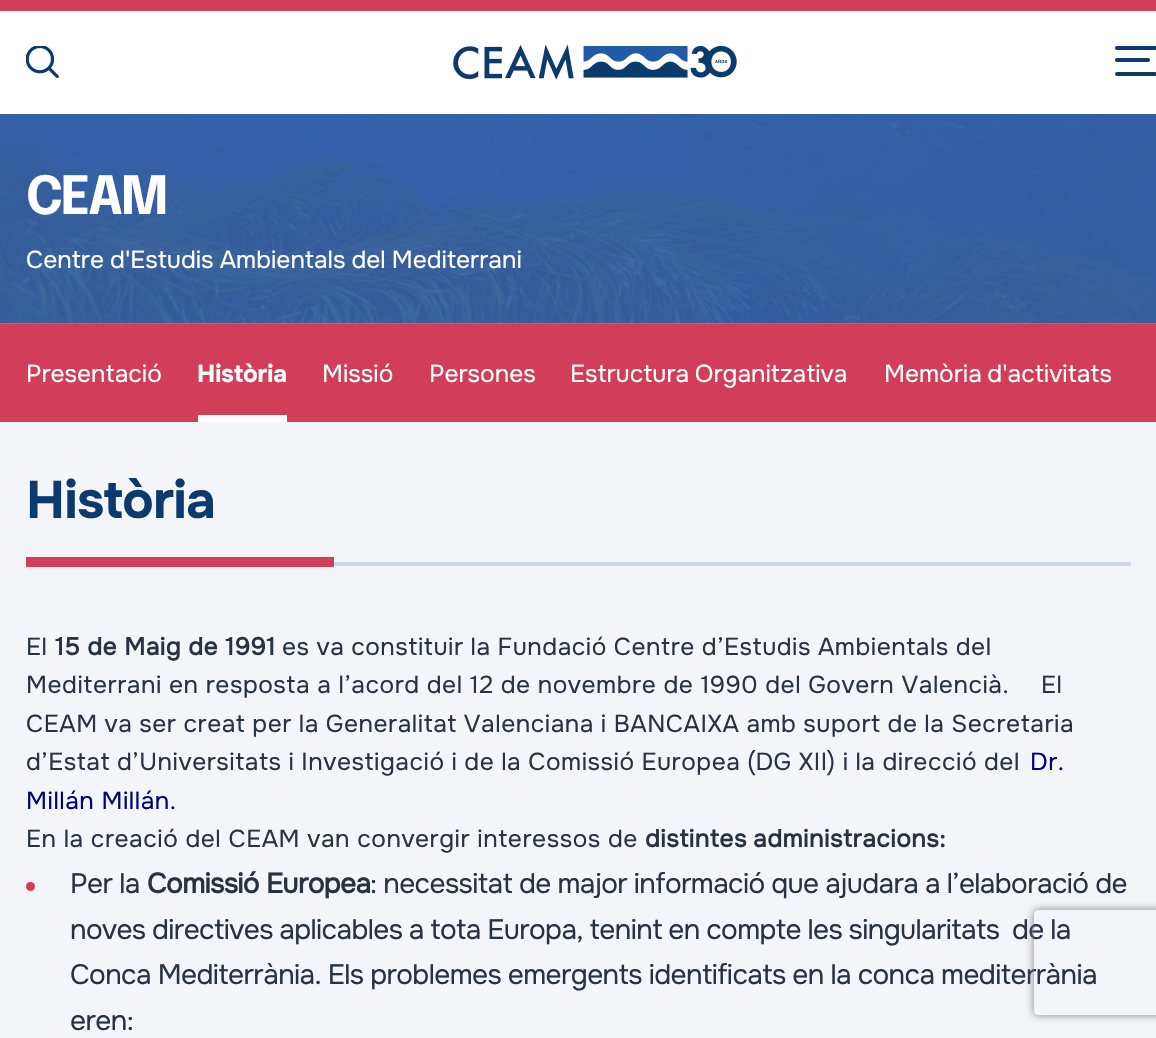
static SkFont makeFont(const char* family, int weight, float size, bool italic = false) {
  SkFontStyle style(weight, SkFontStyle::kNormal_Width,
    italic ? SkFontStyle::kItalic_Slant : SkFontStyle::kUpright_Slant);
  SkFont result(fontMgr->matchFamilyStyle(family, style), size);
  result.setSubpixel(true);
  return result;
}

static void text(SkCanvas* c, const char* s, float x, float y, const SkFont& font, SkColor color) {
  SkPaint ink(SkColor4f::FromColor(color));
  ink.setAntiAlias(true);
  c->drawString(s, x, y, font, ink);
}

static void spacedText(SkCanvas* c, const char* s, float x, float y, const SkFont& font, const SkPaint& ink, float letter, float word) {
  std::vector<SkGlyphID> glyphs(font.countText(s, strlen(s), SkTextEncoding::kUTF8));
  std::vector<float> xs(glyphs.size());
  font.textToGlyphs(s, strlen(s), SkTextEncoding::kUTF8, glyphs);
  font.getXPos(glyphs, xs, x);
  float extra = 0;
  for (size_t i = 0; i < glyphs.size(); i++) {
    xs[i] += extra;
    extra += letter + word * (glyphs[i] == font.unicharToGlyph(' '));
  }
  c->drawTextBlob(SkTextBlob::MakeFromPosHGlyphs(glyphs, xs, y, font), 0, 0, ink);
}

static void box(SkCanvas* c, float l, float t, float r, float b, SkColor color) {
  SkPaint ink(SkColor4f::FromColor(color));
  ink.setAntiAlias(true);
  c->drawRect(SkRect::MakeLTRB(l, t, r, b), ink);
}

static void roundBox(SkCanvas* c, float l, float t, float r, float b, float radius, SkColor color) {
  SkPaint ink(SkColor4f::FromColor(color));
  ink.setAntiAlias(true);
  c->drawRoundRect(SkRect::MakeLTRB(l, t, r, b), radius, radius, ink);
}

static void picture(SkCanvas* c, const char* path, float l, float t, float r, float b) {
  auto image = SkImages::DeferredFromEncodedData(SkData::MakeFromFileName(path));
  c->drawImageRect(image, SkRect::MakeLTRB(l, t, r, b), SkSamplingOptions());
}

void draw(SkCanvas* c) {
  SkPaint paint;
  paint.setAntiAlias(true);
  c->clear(0xfff4f5f9);
  box(c, 0, 11, 1156, 114, 0xffffffff);
  box(c, 0, 0, 1156, 11, 0xffd23e57);
  picture(c, "img_01.png", 26, 46, 59, 78);
  picture(c, "img_02.png", 453, 44, 737, 80);
  roundBox(c, 1115, 46, 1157, 50, 2, 0xff0c3a6c);
  roundBox(c, 1115, 58, 1150, 62, 2, 0xff0c3a6c);
  roundBox(c, 1115, 72, 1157, 76, 2, 0xff0c3a6c);
  picture(c, "img_03.png", 0, 114, 1156, 324);
  SkFont face1 = makeFont("Epilogue", 700, 52.5f);
  paint.setColor(0xffffffff);
  spacedText(c, "CEAM", 26, 214, face1, paint, -2.5f, 0);
  SkFont face2 = makeFont("Onest", 400, 24.5f);
  spacedText(c, "Centre d'Estudis Ambientals del Mediterrani", 26, 268, face2, paint, 0, -0.5f);
  box(c, 0, 324, 1156, 422, 0xffd23e57);
  text(c, "Presentació", 26, 382, face2, 0xffffffff);
  SkFont face3 = makeFont("Onest", 700, 24.5f);
  text(c, "Història", 197, 382, face3, 0xffffffff);
  box(c, 198, 415, 287, 422, 0xffffffff);
  text(c, "Missió", 322, 382, face2, 0xffffffff);
  text(c, "Persones", 429, 382, face2, 0xffffffff);
  spacedText(c, "Estructura Organitzativa", 570, 382, face2, paint, 0, -1);
  spacedText(c, "Memòria d'activitats", 884, 382, face2, paint, 0, -1);
  box(c, 334, 562, 1131, 566, 0xffcfd8eb);
  SkFont face4 = makeFont("Onest", 700, 52.5f);
  paint.setColor(0xff0c3a6c);
  spacedText(c, "Història", 26, 518, face4, paint, -0.5f, 0);
  box(c, 26, 557, 334, 567, 0xffd23e57);
  paint.setColor(0xff273242);
  spacedText(c, "El", 26, 655, face2, paint, 0.53f, 0);
  SkFont face5 = makeFont("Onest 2", 700, 24.5f);
  spacedText(c, "15 de Maig de 1991", 55, 655, face5, paint, 0.53f, 0);
  spacedText(c, "es va constituir la Fundació Centre d’Estudis Ambientals del", 282, 655, face2, paint, 0.53f, -0.25f);
  spacedText(c, "Mediterrani en resposta a l’acord del 12 de novembre de 1990 del Govern Valencià.", 26, 693, face2, paint, 0.53f, 0);
  spacedText(c, "El", 1041, 693, face2, paint, 0.53f, 0);
  spacedText(c, "CEAM va ser creat per la Generalitat Valenciana i BANCAIXA amb suport de la Secretaria", 26, 732, face2, paint, 0.53f, -0.25f);
  spacedText(c, "d’Estat d’Universitats i Investigació i de la Comissió Europea (DG XII) i la direcció del", 26, 770, face2, paint, 0.53f, -0.2f);
  paint.setColor(0xff000080);
  spacedText(c, "Dr.", 1030, 770, face2, paint, 0.53f, 0);
  spacedText(c, "Millán Millán.", 26, 809, face2, paint, 0.53f, 0);
  paint.setColor(0xff273242);
  spacedText(c, "En la creació del CEAM van convergir interessos de", 26, 847, face2, paint, 0.53f, 0);
  spacedText(c, "distintes administracions:", 645, 847, face5, paint, 0.53f, -1);
  paint.setColor(0xffd23e57);
  c->drawCircle(30.5f, 886.5f, 4.5f, paint);
  SkFont face6 = makeFont("Onest", 400, 28);
  paint.setColor(0xff273242);
  spacedText(c, "Per la", 70, 893, face6, paint, -0.6f, 0);
  SkFont face7 = makeFont("Onest 2", 700, 28);
  spacedText(c, "Comissió Europea", 147, 893, face7, paint, -0.6f, 0);
  spacedText(c, ": necessitat de major informació que ajudara a l’elaboració de", 370, 893, face6, paint, -0.6f, -0.25f);
  spacedText(c, "noves directives aplicables a tota Europa, tenint en compte les singularitats", 70, 939, face6, paint, -0.6f, -0.5f);
  spacedText(c, "de la", 1012, 939, face6, paint, -0.6f, -0.5f);
  spacedText(c, "Conca Mediterrània. Els problemes emergents identificats en la conca mediterrània", 70, 984, face6, paint, -0.6f, -0.25f);
  spacedText(c, "eren:", 70, 1030, face6, paint, -0.6f, 0);
  c->save();
  c->clipPath(SkPathBuilder(SkPathFillType::kEvenOdd).moveTo(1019, 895).lineTo(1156, 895).lineTo(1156, 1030).lineTo(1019, 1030).close().moveTo(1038, 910).lineTo(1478, 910).cubicTo(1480, 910, 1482, 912, 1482, 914).lineTo(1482, 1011).cubicTo(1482, 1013, 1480, 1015, 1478, 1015).lineTo(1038, 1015).cubicTo(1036, 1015, 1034, 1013, 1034, 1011).lineTo(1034, 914).cubicTo(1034, 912, 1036, 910, 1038, 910).close().detach(), true);
  paint.setColor(0xff808080);
  paint.setMaskFilter(SkMaskFilter::MakeBlur(kNormal_SkBlurStyle, 4.5f));
  c->drawRoundRect(SkRect::MakeLTRB(1034, 910, 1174, 1015), 4, 4, paint);
  paint.setMaskFilter(nullptr);
  c->restore();
}
